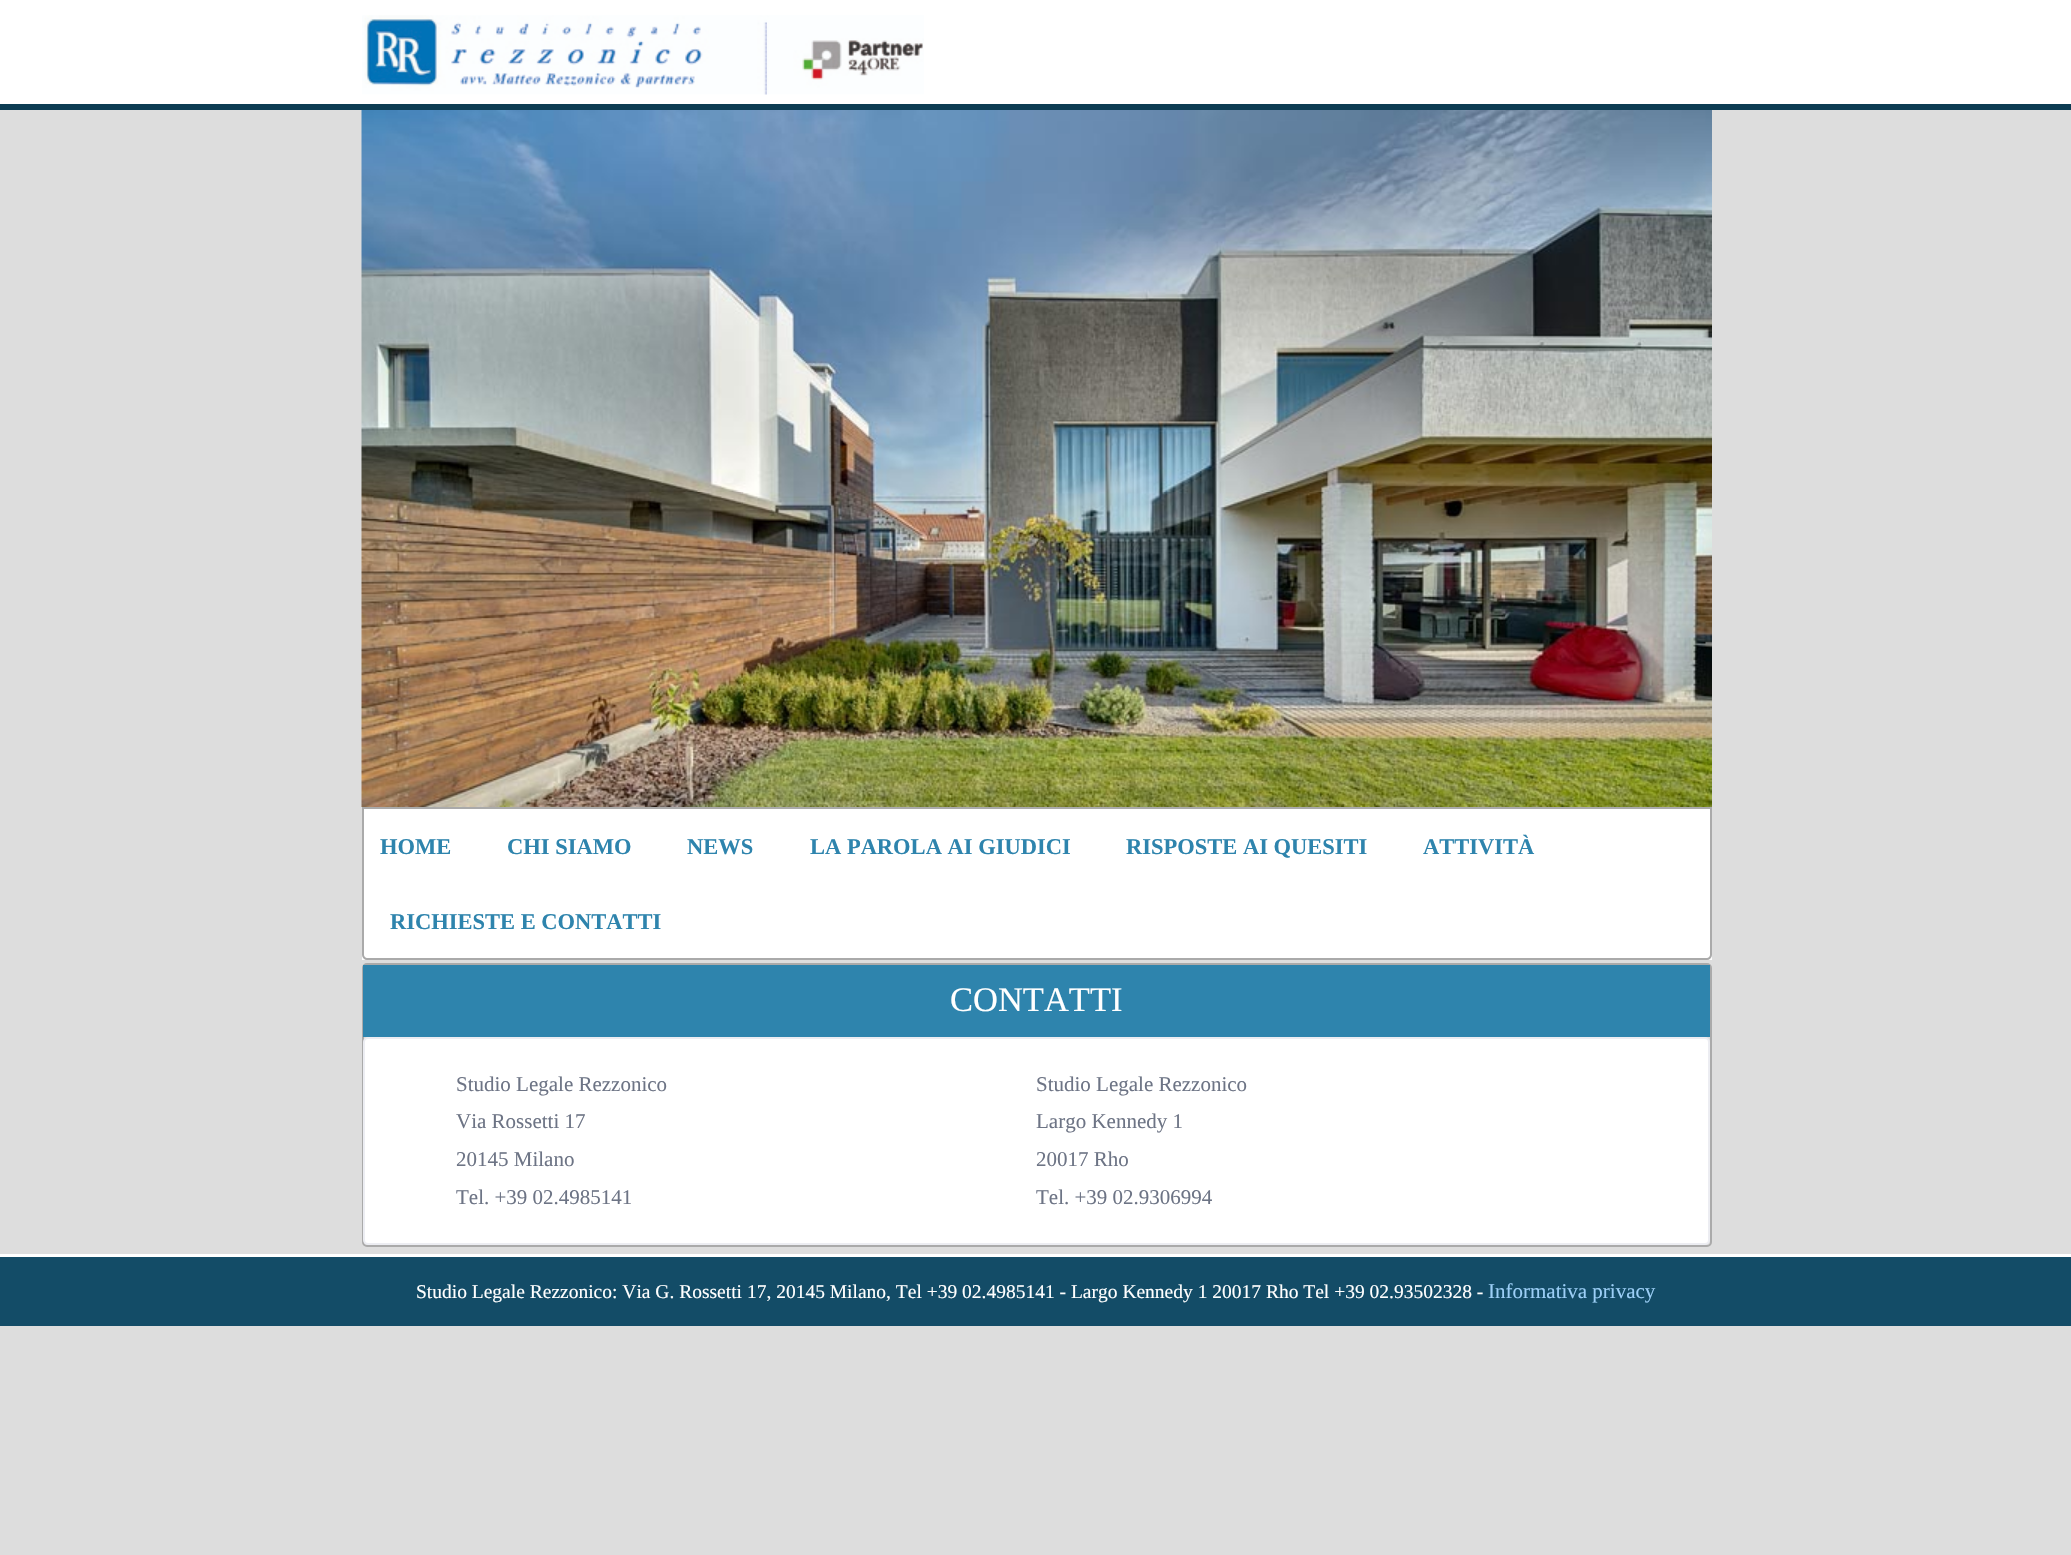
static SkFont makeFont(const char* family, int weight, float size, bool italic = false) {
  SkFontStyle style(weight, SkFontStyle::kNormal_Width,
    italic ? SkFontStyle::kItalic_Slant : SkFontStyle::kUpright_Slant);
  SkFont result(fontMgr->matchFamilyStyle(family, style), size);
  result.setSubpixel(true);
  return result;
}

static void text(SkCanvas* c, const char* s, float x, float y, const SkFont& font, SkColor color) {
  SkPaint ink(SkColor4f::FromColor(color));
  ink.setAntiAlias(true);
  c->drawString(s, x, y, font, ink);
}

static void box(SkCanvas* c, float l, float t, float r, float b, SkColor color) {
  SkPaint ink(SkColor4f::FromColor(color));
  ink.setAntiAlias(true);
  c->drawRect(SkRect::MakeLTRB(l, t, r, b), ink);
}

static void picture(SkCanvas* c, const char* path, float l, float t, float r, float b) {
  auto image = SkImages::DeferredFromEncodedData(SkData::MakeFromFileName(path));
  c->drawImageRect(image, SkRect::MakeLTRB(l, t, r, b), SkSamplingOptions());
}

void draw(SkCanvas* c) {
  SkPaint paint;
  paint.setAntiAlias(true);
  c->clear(0xffdddddd);
  box(c, 0, 0, 2071, 104, 0xffffffff);
  picture(c, "img_01.png", 362, 15, 924, 95);
  box(c, 0, 104, 2071, 110, 0xff0d3c53);
  picture(c, "img_02.png", 361, 110, 1712, 807);
  box(c, 362, 809, 1712, 960, 0xffffffff);
  paint.setStyle(SkPaint::kStroke_Style);
  paint.setStrokeWidth(2);
  paint.setColor(0xffaaaaaa);
  c->drawPath(SkPathBuilder().moveTo(363, 808).lineTo(1711, 808).lineTo(1711, 955).cubicTo(1711, 957, 1709, 959, 1707, 959).lineTo(367, 959).cubicTo(365, 959, 363, 957, 363, 955).close().detach(), paint);
  SkFont face1 = makeFont("Liberation Serif", 700, 22.5f);
  text(c, "HOME", 380, 854, face1, 0xff2e84ad);
  text(c, "CHI SIAMO", 507, 854, face1, 0xff2e84ad);
  text(c, "NEWS", 687, 854, face1, 0xff2e84ad);
  text(c, "LA PAROLA AI GIUDICI", 810, 854, face1, 0xff2e84ad);
  text(c, "RISPOSTE AI QUESITI", 1126, 854, face1, 0xff2e84ad);
  text(c, "ATTIVITÀ", 1423, 854, face1, 0xff2e84ad);
  text(c, "RICHIESTE E CONTATTI", 390, 929, face1, 0xff2e84ad);
  c->drawRoundRect(SkRect::MakeLTRB(363, 964, 1711, 1246), 4, 4, paint);
  box(c, 363, 965, 1710, 1037, 0xff2e84ad);
  SkFont face2 = makeFont("Liberation Serif", 400, 34.5f);
  text(c, "CONTATTI", 950, 1011, face2, 0xffffffff);
  paint.setStyle(SkPaint::kFill_Style);
  paint.setColor(0xffffffff);
  c->drawRoundRect(SkRect::MakeLTRB(364, 1038, 1709, 1244), 4, 4, paint);
  paint.setStyle(SkPaint::kStroke_Style);
  paint.setColor(0xffecedf2);
  c->drawRoundRect(SkRect::MakeLTRB(364, 1038, 1709, 1244), 4, 4, paint);
  SkFont face3 = makeFont("Liberation Serif", 400, 21);
  text(c, "Studio Legale Rezzonico", 456, 1091, face3, 0xff6d7485);
  text(c, "Via Rossetti 17", 456, 1128, face3, 0xff6d7485);
  text(c, "20145 Milano", 456, 1166, face3, 0xff6d7485);
  text(c, "Tel. +39 02.4985141", 456, 1204, face3, 0xff6d7485);
  text(c, "Studio Legale Rezzonico", 1036, 1091, face3, 0xff6d7485);
  text(c, "Largo Kennedy 1", 1036, 1128, face3, 0xff6d7485);
  text(c, "20017 Rho", 1036, 1166, face3, 0xff6d7485);
  text(c, "Tel. +39 02.9306994", 1036, 1204, face3, 0xff6d7485);
  box(c, 0, 1257, 2071, 1326, 0xff134c67);
  box(c, 0, 1254, 2071, 1257, 0xffffffff);
  SkFont face4 = makeFont("Liberation Serif", 400, 19.5f);
  text(c, "Studio Legale Rezzonico: Via G. Rossetti 17, 20145 Milano, Tel +39 02.4985141 - Largo Kennedy 1 20017 Rho Tel +39 02.93502328 -", 416, 1298, face4, 0xffffffff);
  text(c, "Informativa privacy", 1488, 1298, face3, 0xff9ccff7);
}
